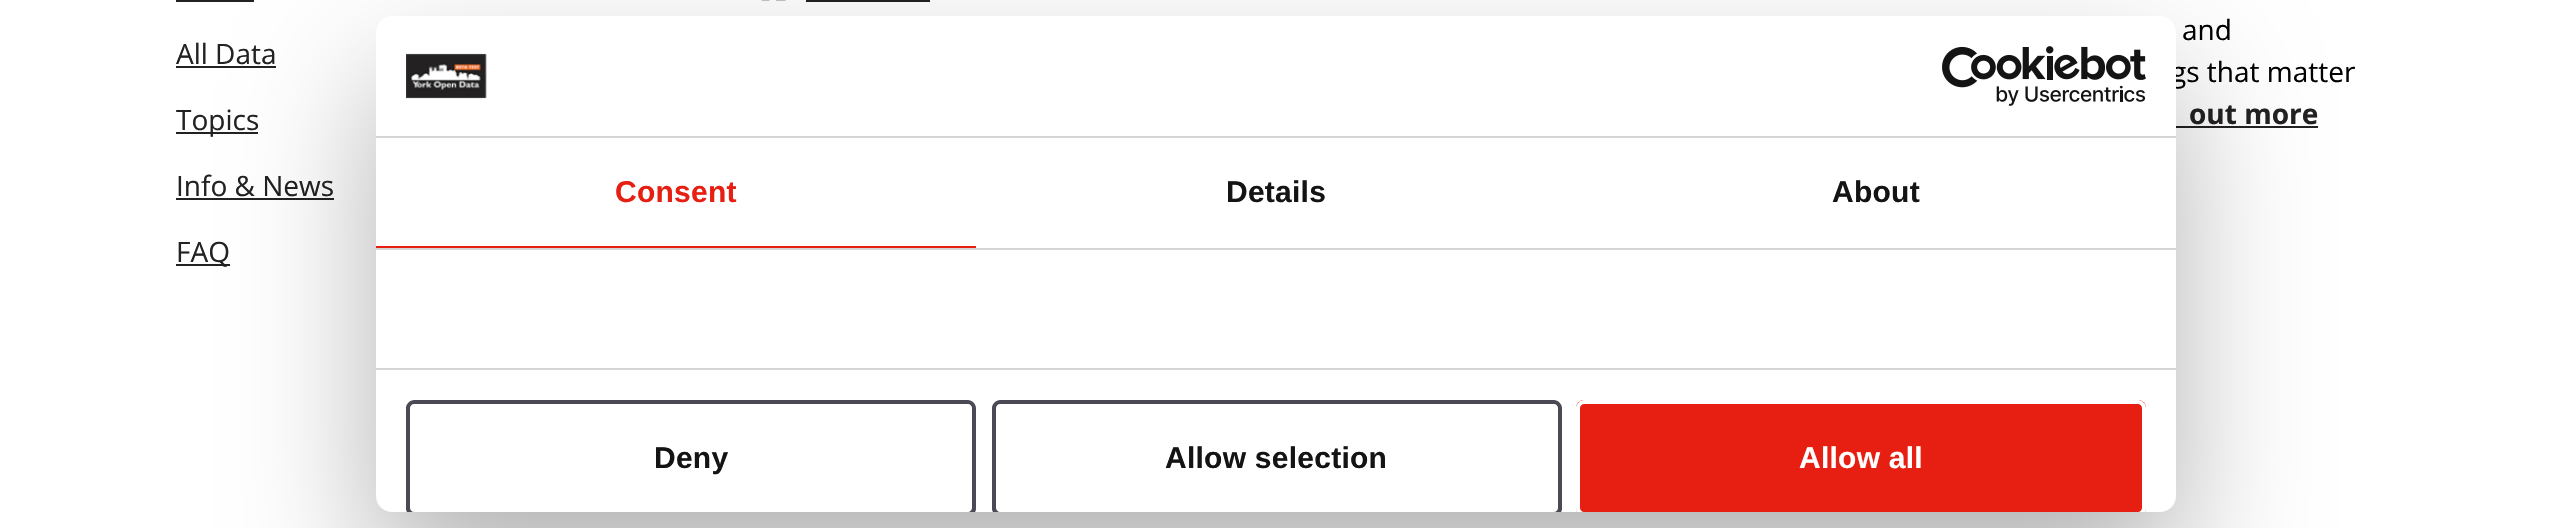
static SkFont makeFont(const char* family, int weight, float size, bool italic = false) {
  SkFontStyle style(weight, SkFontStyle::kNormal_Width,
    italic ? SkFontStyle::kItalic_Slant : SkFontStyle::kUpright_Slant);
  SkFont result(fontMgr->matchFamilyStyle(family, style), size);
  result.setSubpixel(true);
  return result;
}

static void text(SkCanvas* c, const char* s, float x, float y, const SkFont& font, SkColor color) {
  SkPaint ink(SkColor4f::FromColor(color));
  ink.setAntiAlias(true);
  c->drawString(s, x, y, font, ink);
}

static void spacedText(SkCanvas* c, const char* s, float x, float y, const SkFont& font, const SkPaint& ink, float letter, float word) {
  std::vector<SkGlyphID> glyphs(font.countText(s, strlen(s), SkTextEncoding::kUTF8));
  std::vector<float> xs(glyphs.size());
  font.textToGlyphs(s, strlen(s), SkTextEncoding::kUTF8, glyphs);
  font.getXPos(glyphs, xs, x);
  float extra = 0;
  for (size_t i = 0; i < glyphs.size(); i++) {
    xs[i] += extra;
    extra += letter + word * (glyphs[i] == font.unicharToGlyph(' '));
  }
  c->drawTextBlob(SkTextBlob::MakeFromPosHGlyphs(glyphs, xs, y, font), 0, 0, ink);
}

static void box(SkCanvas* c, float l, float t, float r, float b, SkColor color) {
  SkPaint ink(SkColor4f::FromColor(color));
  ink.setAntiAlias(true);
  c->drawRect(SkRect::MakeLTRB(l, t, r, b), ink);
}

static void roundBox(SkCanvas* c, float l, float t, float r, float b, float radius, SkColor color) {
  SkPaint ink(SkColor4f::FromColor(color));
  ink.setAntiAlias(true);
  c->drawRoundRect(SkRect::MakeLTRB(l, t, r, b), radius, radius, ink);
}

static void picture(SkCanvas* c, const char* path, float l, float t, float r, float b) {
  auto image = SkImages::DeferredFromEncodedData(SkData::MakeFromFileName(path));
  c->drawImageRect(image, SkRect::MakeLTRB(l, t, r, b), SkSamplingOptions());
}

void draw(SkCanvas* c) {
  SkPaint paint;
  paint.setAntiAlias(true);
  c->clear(0xffffffff);
  picture(c, "img_01.png", 761, 0, 786, 1);
  box(c, 806, 0, 930, 2, 0xff232121);
  box(c, 176, 0, 254, 2, 0xff232121);
  SkFont face1 = makeFont("Open Sans", 400, 28);
  text(c, "All Data", 176, 64, face1, 0xff232121);
  box(c, 176, 66, 276, 68, 0xff232121);
  box(c, 176, 132, 258, 134, 0xff232121);
  text(c, "Topics", 176, 130, face1, 0xff232121);
  text(c, "Info & News", 176, 196, face1, 0xff232121);
  box(c, 176, 198, 334, 200, 0xff232121);
  box(c, 176, 264, 230, 266, 0xff232121);
  text(c, "FAQ", 176, 262, face1, 0xff232121);
  text(c, "and", 2182, 40, face1, 0xff000000);
  text(c, "gs that matter", 2171, 82, face1, 0xff000000);
  SkFont face2 = makeFont("Open Sans", 700, 28);
  text(c, "out more", 2189, 124, face2, 0xff232121);
  box(c, 2176, 126, 2318, 128, 0xff232121);
  paint.setColor(0x4d000000);
  paint.setMaskFilter(SkMaskFilter::MakeBlur(kNormal_SkBlurStyle, 68));
  c->drawRoundRect(SkRect::MakeLTRB(376, 80, 2176, 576), 16, 16, paint);
  paint.setMaskFilter(nullptr);
  roundBox(c, 376, 16, 2176, 512, 16, 0xffffffff);
  box(c, 376, 136, 2176, 138, 0xffd6d6d6);
  picture(c, "img_02.png", 406, 53, 487, 99);
  picture(c, "img_03.png", 1942, 46, 2146, 106);
  box(c, 376, 248, 2176, 250, 0xffd6d6d6);
  box(c, 376, 246, 976, 248, 0xffe71f13);
  SkFont face3 = makeFont("Liberation Sans", 700, 30);
  paint.setColor(0xffe71f13);
  spacedText(c, "Consent", 615, 202, face3, paint, 0.25f, 0);
  paint.setColor(0xff141414);
  spacedText(c, "Details", 1226, 202, face3, paint, 0.25f, 0);
  spacedText(c, "About", 1832, 202, face3, paint, 0.25f, 0);
  box(c, 376, 368, 2176, 370, 0xffd6d6d6);
  paint.setColor(0xff4b4a54);
  c->drawPath(SkPathBuilder().moveTo(414, 400).cubicTo(410, 400, 406, 404, 406, 408).lineTo(406, 508).cubicTo(406, 509, 406, 511, 407, 512).lineTo(414, 512).cubicTo(412, 512, 410, 510, 410, 508).lineTo(410, 408).cubicTo(410, 406, 412, 404, 414, 404).lineTo(968, 404).cubicTo(970, 404, 972, 406, 972, 408).lineTo(972, 508).cubicTo(972, 510, 970, 512, 968, 512).lineTo(975, 512).cubicTo(976, 511, 976, 509, 976, 508).lineTo(976, 408).cubicTo(976, 404, 972, 400, 968, 400).close().detach(), paint);
  paint.setColor(0xff141414);
  spacedText(c, "Deny", 654, 468, face3, paint, 0.25f, 0);
  paint.setColor(0xff4b4a54);
  c->drawPath(SkPathBuilder().moveTo(1000, 400).cubicTo(996, 400, 992, 404, 992, 408).lineTo(992, 508).cubicTo(992, 509, 992, 511, 993, 512).lineTo(1000, 512).cubicTo(998, 512, 996, 510, 996, 508).lineTo(996, 408).cubicTo(996, 406, 998, 404, 1000, 404).lineTo(1554, 404).cubicTo(1556, 404, 1558, 406, 1558, 408).lineTo(1558, 508).cubicTo(1558, 510, 1556, 512, 1554, 512).lineTo(1561, 512).cubicTo(1562, 511, 1562, 509, 1562, 508).lineTo(1562, 408).cubicTo(1562, 404, 1558, 400, 1554, 400).close().detach(), paint);
  paint.setColor(0xff141414);
  spacedText(c, "Allow selection", 1165, 468, face3, paint, 0.25f, 0);
  c->save();
  c->clipPath(SkPathBuilder().moveTo(392, 16).lineTo(2160, 16).cubicTo(2169, 16, 2176, 23, 2176, 32).lineTo(2176, 496).cubicTo(2176, 505, 2169, 512, 2160, 512).lineTo(392, 512).cubicTo(383, 512, 376, 505, 376, 496).lineTo(376, 32).cubicTo(376, 23, 383, 16, 392, 16).close().detach(), true);
  roundBox(c, 1576, 400, 2146, 516, 8, 0xffe71f13);
  c->restore();
  paint.setColor(0xffffffff);
  c->drawPath(SkPathBuilder().moveTo(1584, 400).cubicTo(1580, 400, 1576, 404, 1576, 408).lineTo(1576, 508).cubicTo(1576, 509, 1576, 511, 1577, 512).lineTo(1584, 512).cubicTo(1582, 512, 1580, 510, 1580, 508).lineTo(1580, 408).cubicTo(1580, 406, 1582, 404, 1584, 404).lineTo(2138, 404).cubicTo(2140, 404, 2142, 406, 2142, 408).lineTo(2142, 508).cubicTo(2142, 510, 2140, 512, 2138, 512).lineTo(2145, 512).cubicTo(2146, 511, 2146, 509, 2146, 508).lineTo(2146, 408).cubicTo(2146, 404, 2142, 400, 2138, 400).close().detach(), paint);
  spacedText(c, "Allow all", 1799, 468, face3, paint, 0.25f, 0);
}
